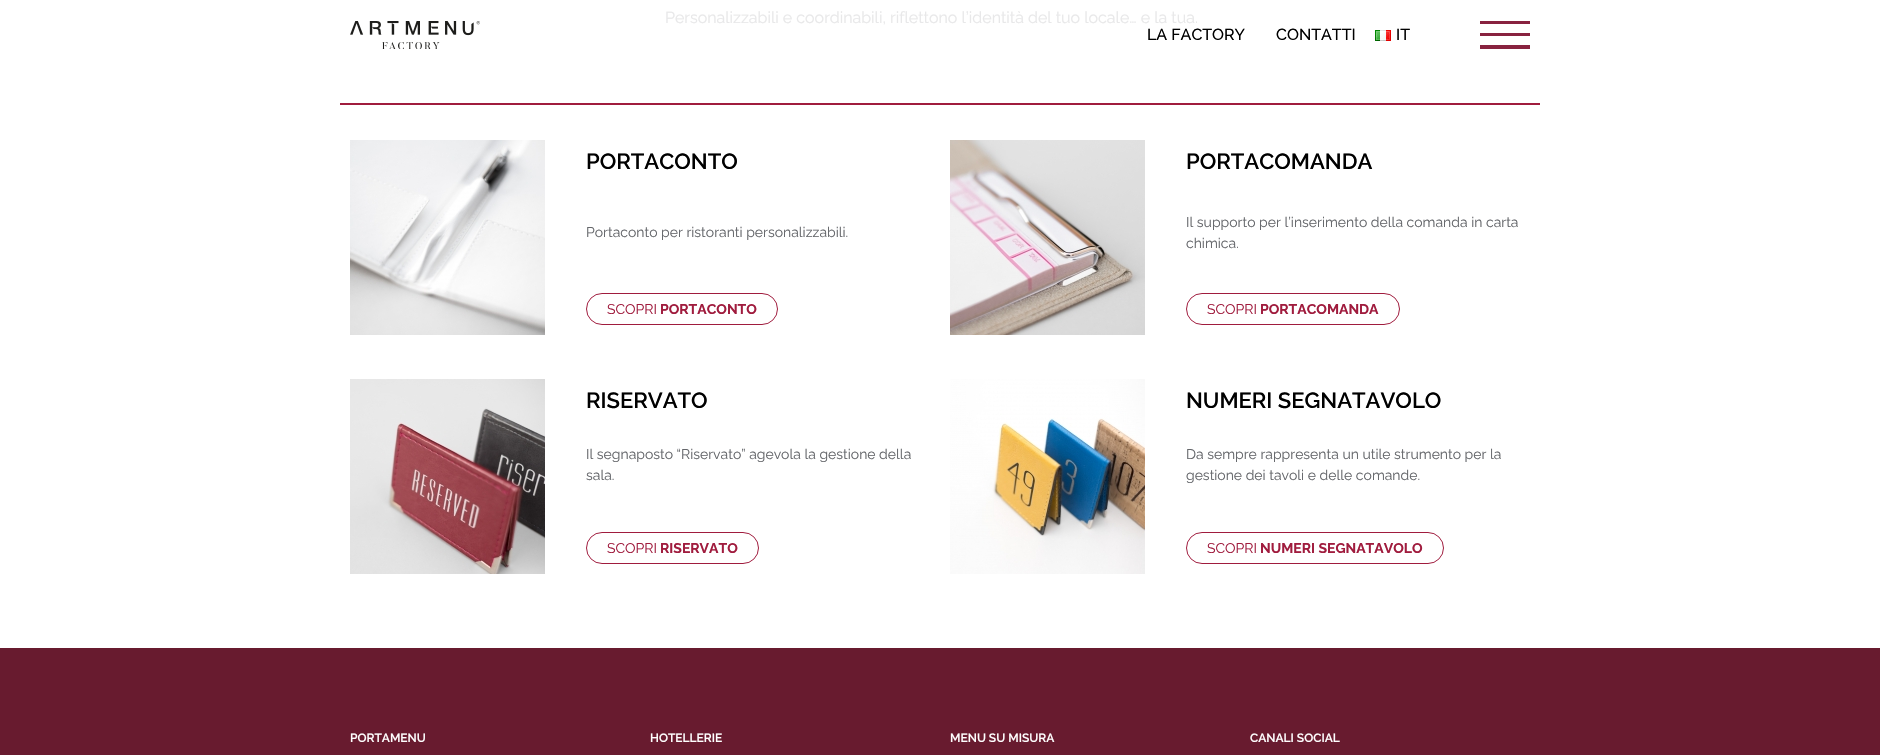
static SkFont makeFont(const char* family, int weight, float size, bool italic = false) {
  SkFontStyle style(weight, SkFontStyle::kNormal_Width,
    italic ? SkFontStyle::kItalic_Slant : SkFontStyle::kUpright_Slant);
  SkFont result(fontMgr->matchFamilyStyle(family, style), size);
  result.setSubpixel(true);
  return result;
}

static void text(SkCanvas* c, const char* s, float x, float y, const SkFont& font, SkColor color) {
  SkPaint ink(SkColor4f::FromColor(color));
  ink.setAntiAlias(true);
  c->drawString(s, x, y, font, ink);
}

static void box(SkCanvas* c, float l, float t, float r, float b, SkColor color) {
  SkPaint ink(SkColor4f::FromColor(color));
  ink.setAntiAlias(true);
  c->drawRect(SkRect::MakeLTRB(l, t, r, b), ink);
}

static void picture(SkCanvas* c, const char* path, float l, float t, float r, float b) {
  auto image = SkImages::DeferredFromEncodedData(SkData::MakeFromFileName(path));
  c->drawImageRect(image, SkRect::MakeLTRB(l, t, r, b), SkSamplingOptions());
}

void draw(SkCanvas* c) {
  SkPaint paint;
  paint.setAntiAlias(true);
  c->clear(0xffffffff);
  SkFont face1 = makeFont("Raleway", 400, 16);
  text(c, "Personalizzabili e coordinabili, riflettono l’identità del tuo locale… e la tua.", 665, 23, face1, 0xffe8e8e9);
  box(c, 340, 103, 1540, 105, 0xffa01c3e);
  picture(c, "img_01.png", 350, 140, 545, 335);
  SkFont face2 = makeFont("Raleway", 600, 22);
  text(c, "PORTACONTO", 586, 169, face2, 0xff000000);
  SkFont face3 = makeFont("Raleway", 400, 14);
  text(c, "Portaconto per ristoranti personalizzabili.", 586, 237, face3, 0xff64666a);
  paint.setStyle(SkPaint::kStroke_Style);
  paint.setStrokeWidth(1);
  paint.setColor(0xffa01c3e);
  c->drawRoundRect(SkRect::MakeLTRB(586.5f, 293.5f, 777.5f, 324.5f), 15.5f, 15.5f, paint);
  text(c, "SCOPRI", 607, 314, face3, 0xffa01c3e);
  SkFont face4 = makeFont("Raleway", 700, 14);
  text(c, "PORTACONTO", 660, 314, face4, 0xffa01c3e);
  picture(c, "img_02.png", 950, 140, 1145, 335);
  text(c, "PORTACOMANDA", 1186, 169, face2, 0xff000000);
  text(c, "Il supporto per l’inserimento della comanda in carta", 1186, 227, face3, 0xff64666a);
  text(c, "chimica.", 1186, 248, face3, 0xff64666a);
  c->drawRoundRect(SkRect::MakeLTRB(1186.5f, 293.5f, 1399.5f, 324.5f), 15.5f, 15.5f, paint);
  text(c, "SCOPRI", 1207, 314, face3, 0xffa01c3e);
  text(c, "PORTACOMANDA", 1260, 314, face4, 0xffa01c3e);
  picture(c, "img_03.png", 350, 379, 545, 574);
  text(c, "RISERVATO", 586, 408, face2, 0xff000000);
  text(c, "Il segnaposto “Riservato” agevola la gestione della", 586, 459, face3, 0xff64666a);
  text(c, "sala.", 586, 480, face3, 0xff64666a);
  c->drawRoundRect(SkRect::MakeLTRB(586.5f, 532.5f, 758.5f, 563.5f), 15.5f, 15.5f, paint);
  text(c, "SCOPRI", 607, 553, face3, 0xffa01c3e);
  text(c, "RISERVATO", 660, 553, face4, 0xffa01c3e);
  picture(c, "img_04.png", 950, 379, 1145, 574);
  text(c, "NUMERI SEGNATAVOLO", 1186, 408, face2, 0xff000000);
  text(c, "Da sempre rappresenta un utile strumento per la", 1186, 459, face3, 0xff64666a);
  text(c, "gestione dei tavoli e delle comande.", 1186, 480, face3, 0xff64666a);
  c->drawRoundRect(SkRect::MakeLTRB(1186.5f, 532.5f, 1443.5f, 563.5f), 15.5f, 15.5f, paint);
  text(c, "SCOPRI", 1207, 553, face3, 0xffa01c3e);
  text(c, "NUMERI SEGNATAVOLO", 1260, 553, face4, 0xffa01c3e);
  picture(c, "img_05.png", 350, 21, 480, 49);
  SkFont face5 = makeFont("Raleway", 500, 16);
  text(c, "LA FACTORY", 1147, 40, face5, 0xff000000);
  text(c, "CONTATTI", 1276, 40, face5, 0xff000000);
  picture(c, "img_06.png", 1375, 30, 1391, 41);
  text(c, "IT", 1396, 40, face5, 0xff000000);
  box(c, 1480, 21, 1530, 24, 0xff88223f);
  box(c, 1480, 33, 1530, 36, 0xff88223f);
  box(c, 1480, 45, 1530, 49, 0xff88223f);
  box(c, 0, 648, 1880, 755, 0xff681b2f);
  SkFont face6 = makeFont("Raleway", 600, 12);
  text(c, "PORTAMENU", 350, 742, face6, 0xffffffff);
  text(c, "HOTELLERIE", 650, 742, face6, 0xffffffff);
  text(c, "MENU SU MISURA", 950, 742, face6, 0xffffffff);
  text(c, "CANALI SOCIAL", 1250, 742, face6, 0xffffffff);
}
